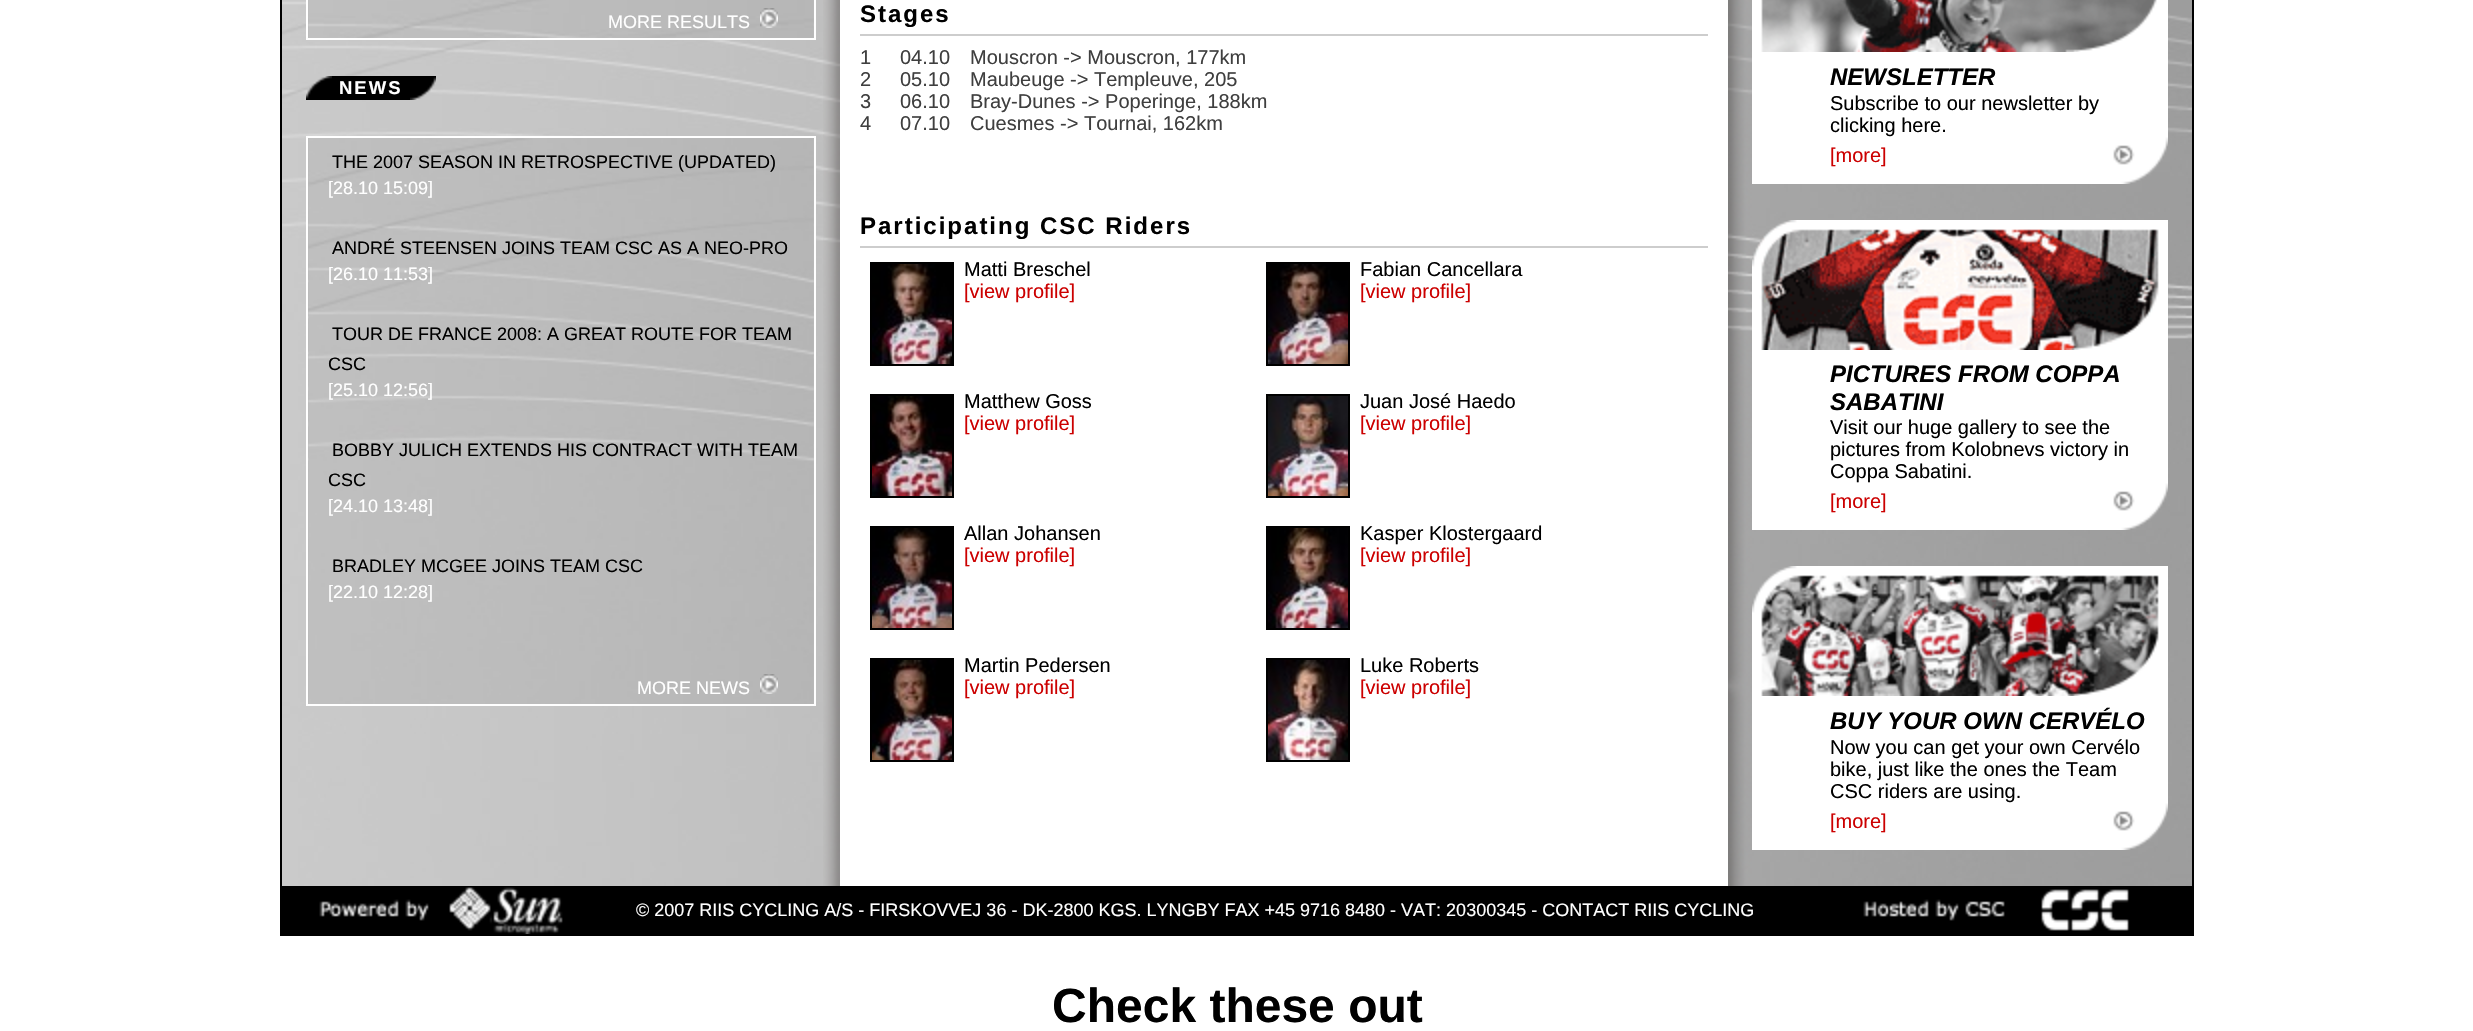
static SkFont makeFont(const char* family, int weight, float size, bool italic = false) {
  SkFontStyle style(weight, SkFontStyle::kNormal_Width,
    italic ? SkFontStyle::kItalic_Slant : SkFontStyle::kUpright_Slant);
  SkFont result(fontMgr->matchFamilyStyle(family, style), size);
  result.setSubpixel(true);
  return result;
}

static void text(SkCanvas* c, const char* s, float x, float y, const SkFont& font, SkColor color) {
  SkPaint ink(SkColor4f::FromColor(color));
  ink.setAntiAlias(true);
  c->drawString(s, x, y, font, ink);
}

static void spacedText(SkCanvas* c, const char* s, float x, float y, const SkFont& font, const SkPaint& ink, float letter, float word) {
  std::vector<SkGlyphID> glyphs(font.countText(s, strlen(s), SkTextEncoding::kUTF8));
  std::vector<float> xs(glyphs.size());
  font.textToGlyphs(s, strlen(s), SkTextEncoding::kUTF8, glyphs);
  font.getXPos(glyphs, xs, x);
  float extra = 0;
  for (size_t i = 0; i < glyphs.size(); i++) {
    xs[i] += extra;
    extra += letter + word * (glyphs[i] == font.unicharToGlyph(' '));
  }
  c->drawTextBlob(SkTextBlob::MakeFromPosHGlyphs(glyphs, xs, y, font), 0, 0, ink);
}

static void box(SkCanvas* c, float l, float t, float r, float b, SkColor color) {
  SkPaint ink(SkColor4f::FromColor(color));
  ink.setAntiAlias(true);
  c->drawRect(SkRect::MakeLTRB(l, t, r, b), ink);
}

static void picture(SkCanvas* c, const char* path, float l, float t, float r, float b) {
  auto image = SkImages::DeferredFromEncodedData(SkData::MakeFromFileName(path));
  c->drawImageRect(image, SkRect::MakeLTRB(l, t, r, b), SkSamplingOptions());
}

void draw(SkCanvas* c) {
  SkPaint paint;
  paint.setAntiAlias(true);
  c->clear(0xffffffff);
  paint.setStyle(SkPaint::kStroke_Style);
  paint.setStrokeWidth(2);
  paint.setColor(0xff000000);
  c->drawRect(SkRect::MakeLTRB(281, -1, 2193, 935), paint);
  picture(c, "img_01.png", 282, 0, 2192, 886);
  picture(c, "img_02.png", 308, 0, 814, 38);
  paint.setColor(0xffffffff);
  c->drawRect(SkRect::MakeLTRB(307, -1, 815, 39), paint);
  SkFont face1 = makeFont("Liberation Sans", 400, 18);
  text(c, "MORE RESULTS", 608, 28, face1, 0xffffffff);
  picture(c, "img_03.png", 760, 8, 778, 28);
  picture(c, "img_04.png", 306, 76, 332, 100);
  box(c, 332, 76, 410, 100, 0xff000000);
  SkFont face2 = makeFont("Liberation Sans", 700, 18.5f);
  paint.setStyle(SkPaint::kFill_Style);
  spacedText(c, "NEWS", 339, 94, face2, paint, 2, 0);
  picture(c, "img_05.png", 410, 76, 436, 100);
  picture(c, "img_06.png", 308, 138, 814, 704);
  paint.setStyle(SkPaint::kStroke_Style);
  c->drawRect(SkRect::MakeLTRB(307, 137, 815, 705), paint);
  text(c, "THE 2007 SEASON IN RETROSPECTIVE (UPDATED)", 332, 168, face1, 0xff000000);
  text(c, "[28.10 15:09]", 328, 194, face1, 0xffffffff);
  text(c, "ANDRÉ STEENSEN JOINS TEAM CSC AS A NEO-PRO", 332, 254, face1, 0xff000000);
  text(c, "[26.10 11:53]", 328, 280, face1, 0xffffffff);
  text(c, "TOUR DE FRANCE 2008: A GREAT ROUTE FOR TEAM", 332, 340, face1, 0xff000000);
  text(c, "CSC", 328, 370, face1, 0xff000000);
  text(c, "[25.10 12:56]", 328, 396, face1, 0xffffffff);
  text(c, "BOBBY JULICH EXTENDS HIS CONTRACT WITH TEAM", 332, 456, face1, 0xff000000);
  text(c, "CSC", 328, 486, face1, 0xff000000);
  text(c, "[24.10 13:48]", 328, 512, face1, 0xffffffff);
  text(c, "BRADLEY MCGEE JOINS TEAM CSC", 332, 572, face1, 0xff000000);
  text(c, "[22.10 12:28]", 328, 598, face1, 0xffffffff);
  text(c, "MORE NEWS", 637, 694, face1, 0xffffffff);
  picture(c, "img_07.png", 760, 674, 778, 694);
  picture(c, "img_08.png", 823, 0, 840, 886);
  box(c, 840, 0, 1728, 886, 0xffffffff);
  SkFont face3 = makeFont("Liberation Sans", 700, 24);
  paint.setStyle(SkPaint::kFill_Style);
  paint.setColor(0xff000000);
  spacedText(c, "Stages", 860, 22, face3, paint, 2, 0);
  box(c, 860, 34, 1708, 36, 0xffcdcdcd);
  SkFont face4 = makeFont("Liberation Sans", 400, 20);
  text(c, "1", 860, 64, face4, 0xff3f3f3f);
  text(c, "04.10", 900, 64, face4, 0xff3f3f3f);
  text(c, "Mouscron -> Mouscron, 177km", 970, 64, face4, 0xff3f3f3f);
  text(c, "2", 860, 86, face4, 0xff3f3f3f);
  text(c, "05.10", 900, 86, face4, 0xff3f3f3f);
  text(c, "Maubeuge -> Templeuve, 205", 970, 86, face4, 0xff3f3f3f);
  text(c, "3", 860, 108, face4, 0xff3f3f3f);
  text(c, "06.10", 900, 108, face4, 0xff3f3f3f);
  text(c, "Bray-Dunes -> Poperinge, 188km", 970, 108, face4, 0xff3f3f3f);
  text(c, "4", 860, 130, face4, 0xff3f3f3f);
  text(c, "07.10", 900, 130, face4, 0xff3f3f3f);
  text(c, "Cuesmes -> Tournai, 162km", 970, 130, face4, 0xff3f3f3f);
  spacedText(c, "Participating CSC Riders", 860, 234, face3, paint, 2, 0);
  box(c, 860, 246, 1708, 248, 0xffcdcdcd);
  paint.setStyle(SkPaint::kStroke_Style);
  c->drawRect(SkRect::MakeLTRB(871, 263, 953, 365), paint);
  picture(c, "img_09.png", 872, 264, 952, 364);
  text(c, "Matti Breschel", 964, 276, face4, 0xff000000);
  text(c, "[view profile]", 964, 298, face4, 0xffcc0000);
  c->drawRect(SkRect::MakeLTRB(1267, 263, 1349, 365), paint);
  picture(c, "img_10.png", 1268, 264, 1348, 364);
  text(c, "Fabian Cancellara", 1360, 276, face4, 0xff000000);
  text(c, "[view profile]", 1360, 298, face4, 0xffcc0000);
  c->drawRect(SkRect::MakeLTRB(871, 395, 953, 497), paint);
  picture(c, "img_11.png", 872, 396, 952, 496);
  text(c, "Matthew Goss", 964, 408, face4, 0xff000000);
  text(c, "[view profile]", 964, 430, face4, 0xffcc0000);
  c->drawRect(SkRect::MakeLTRB(1267, 395, 1349, 497), paint);
  picture(c, "img_12.png", 1268, 396, 1348, 496);
  text(c, "Juan José Haedo", 1360, 408, face4, 0xff000000);
  text(c, "[view profile]", 1360, 430, face4, 0xffcc0000);
  c->drawRect(SkRect::MakeLTRB(871, 527, 953, 629), paint);
  picture(c, "img_13.png", 872, 528, 952, 628);
  text(c, "Allan Johansen", 964, 540, face4, 0xff000000);
  text(c, "[view profile]", 964, 562, face4, 0xffcc0000);
  c->drawRect(SkRect::MakeLTRB(1267, 527, 1349, 629), paint);
  picture(c, "img_14.png", 1268, 528, 1348, 628);
  text(c, "Kasper Klostergaard", 1360, 540, face4, 0xff000000);
  text(c, "[view profile]", 1360, 562, face4, 0xffcc0000);
  c->drawRect(SkRect::MakeLTRB(871, 659, 953, 761), paint);
  picture(c, "img_15.png", 872, 660, 952, 760);
  text(c, "Martin Pedersen", 964, 672, face4, 0xff000000);
  text(c, "[view profile]", 964, 694, face4, 0xffcc0000);
  c->drawRect(SkRect::MakeLTRB(1267, 659, 1349, 761), paint);
  picture(c, "img_16.png", 1268, 660, 1348, 760);
  text(c, "Luke Roberts", 1360, 672, face4, 0xff000000);
  text(c, "[view profile]", 1360, 694, face4, 0xffcc0000);
  picture(c, "img_17.png", 1728, 0, 1752, 886);
  picture(c, "img_18.png", 1752, 0, 2168, 52);
  box(c, 1752, 52, 2168, 136, 0xffffffff);
  SkFont face5 = makeFont("Liberation Sans", 700, 24, true);
  text(c, "NEWSLETTER", 1830, 85, face5, 0xff000000);
  text(c, "Subscribe to our newsletter by", 1830, 110, face4, 0xff000000);
  picture(c, "img_19.png", 1752, 136, 2168, 184);
  text(c, "clicking here.", 1830, 132, face4, 0xff000000);
  text(c, "[more]", 1830, 162, face4, 0xffcc0000);
  picture(c, "img_20.png", 1752, 220, 2168, 350);
  box(c, 1752, 350, 2168, 482, 0xffffffff);
  text(c, "PICTURES FROM COPPA", 1830, 382, face5, 0xff000000);
  text(c, "SABATINI", 1830, 410, face5, 0xff000000);
  text(c, "Visit our huge gallery to see the", 1830, 434, face4, 0xff000000);
  text(c, "pictures from Kolobnevs victory in", 1830, 456, face4, 0xff000000);
  picture(c, "img_21.png", 1752, 482, 2168, 530);
  text(c, "Coppa Sabatini.", 1830, 478, face4, 0xff000000);
  text(c, "[more]", 1830, 508, face4, 0xffcc0000);
  picture(c, "img_22.png", 1752, 566, 2168, 696);
  box(c, 1752, 696, 2168, 802, 0xffffffff);
  text(c, "BUY YOUR OWN CERVÉLO", 1830, 729, face5, 0xff000000);
  text(c, "Now you can get your own Cervélo", 1830, 754, face4, 0xff000000);
  text(c, "bike, just like the ones the Team", 1830, 776, face4, 0xff000000);
  picture(c, "img_23.png", 1752, 802, 2168, 850);
  text(c, "CSC riders are using.", 1830, 798, face4, 0xff000000);
  text(c, "[more]", 1830, 828, face4, 0xffcc0000);
  box(c, 282, 886, 2192, 934, 0xff000000);
  picture(c, "img_24.png", 319, 887, 563, 934);
  text(c, "© 2007 RIIS CYCLING A/S - FIRSKOVVEJ 36 - DK-2800 KGS. LYNGBY FAX +45 9716 8480 - VAT: 20300345 - CONTACT RIIS CYCLING", 636, 916, face1, 0xffffffff);
  picture(c, "img_25.png", 1863, 889, 2129, 931);
  SkFont face6 = makeFont("Liberation Sans", 700, 48);
  text(c, "Check these out", 1052, 1022, face6, 0xff000000);
}
